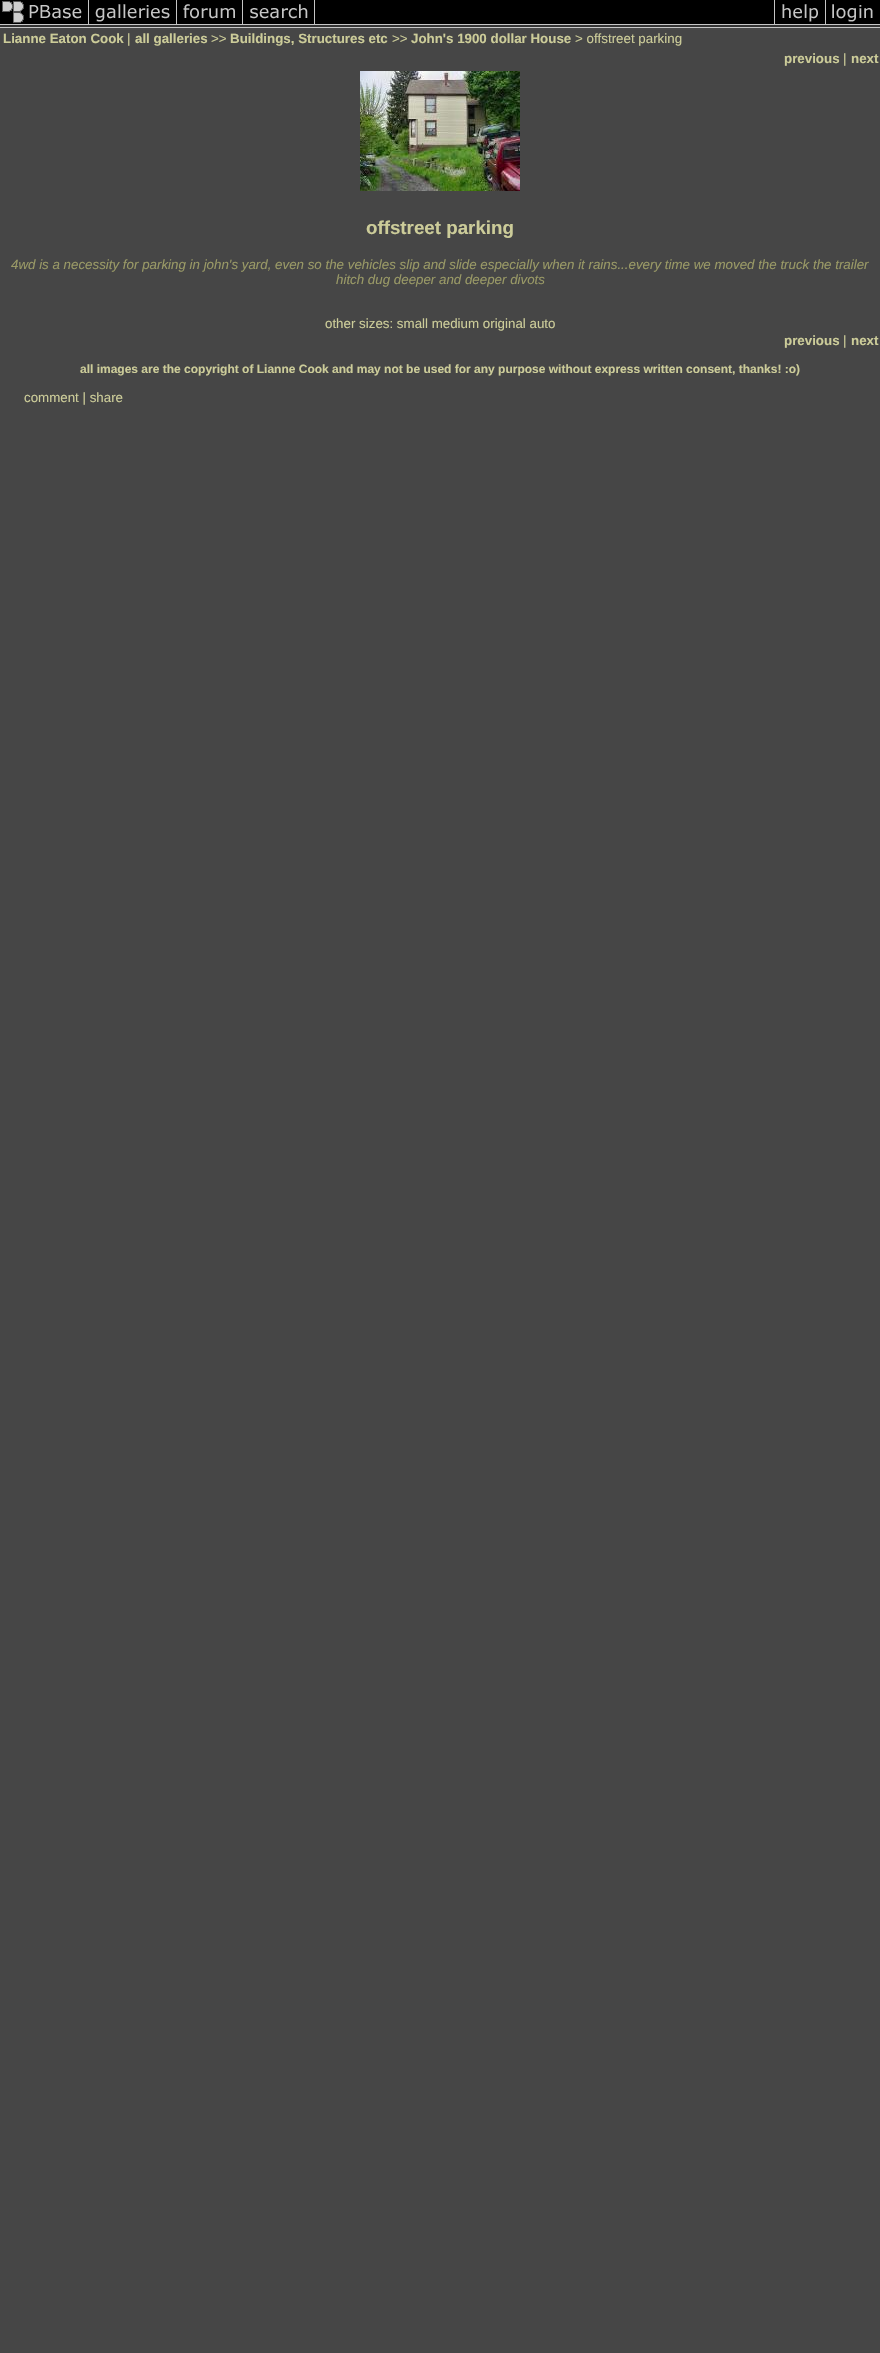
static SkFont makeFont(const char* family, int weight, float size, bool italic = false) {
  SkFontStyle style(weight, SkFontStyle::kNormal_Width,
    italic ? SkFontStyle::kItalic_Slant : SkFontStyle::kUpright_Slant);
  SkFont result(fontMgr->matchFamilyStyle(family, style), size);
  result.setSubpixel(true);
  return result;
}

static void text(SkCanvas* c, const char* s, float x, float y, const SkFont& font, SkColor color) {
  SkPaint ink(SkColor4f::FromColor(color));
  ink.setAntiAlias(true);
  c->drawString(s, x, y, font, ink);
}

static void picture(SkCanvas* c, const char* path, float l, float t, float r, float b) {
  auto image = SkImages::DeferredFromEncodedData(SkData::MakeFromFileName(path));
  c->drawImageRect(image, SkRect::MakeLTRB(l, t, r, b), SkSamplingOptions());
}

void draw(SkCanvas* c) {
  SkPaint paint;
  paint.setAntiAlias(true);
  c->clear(0xff464646);
  picture(c, "img_01.png", 0, 0, 89, 28);
  picture(c, "img_02.png", 89, 0, 177, 28);
  picture(c, "img_03.png", 177, 0, 243, 28);
  picture(c, "img_04.png", 243, 0, 315, 28);
  picture(c, "img_05.png", 315, 0, 774, 28);
  picture(c, "img_06.png", 774, 0, 826, 28);
  picture(c, "img_07.png", 826, 0, 880, 28);
  SkFont face1 = makeFont("Liberation Sans", 700, 13.33f);
  text(c, "Lianne Eaton Cook", 3, 43, face1, 0xffcccc99);
  SkFont face2 = makeFont("Liberation Sans", 400, 13.33f);
  text(c, "|", 127, 43, face2, 0xffcccc99);
  text(c, "all galleries", 135, 43, face1, 0xffcccc99);
  text(c, ">>", 211, 43, face2, 0xffcccc99);
  text(c, "Buildings, Structures etc", 230, 43, face1, 0xffcccc99);
  text(c, ">>", 392, 43, face2, 0xffcccc99);
  text(c, "John's 1900 dollar House", 411, 43, face1, 0xffcccc99);
  text(c, "> offstreet parking", 575, 43, face2, 0xffcccc99);
  text(c, "previous", 784, 63, face1, 0xffcccc99);
  text(c, "|", 843, 63, face2, 0xffcccc99);
  text(c, "next", 851, 63, face1, 0xffcccc99);
  picture(c, "img_08.png", 360, 71, 520, 191);
  SkFont face3 = makeFont("Liberation Sans", 700, 18.75f);
  text(c, "offstreet parking", 366, 234, face3, 0xffcccc99);
  SkFont face4 = makeFont("Liberation Sans", 400, 13.33f, true);
  text(c, "4wd is a necessity for parking in john's yard, even so the vehicles slip and slide especially when it rains...every time we moved the truck the trailer", 11, 269, face4, 0xff999966);
  text(c, "hitch dug deeper and deeper divots", 336, 284, face4, 0xff999966);
  text(c, "other sizes: small medium original auto", 325, 328, face2, 0xffcccc99);
  text(c, "previous", 784, 345, face1, 0xffcccc99);
  text(c, "|", 843, 345, face2, 0xffcccc99);
  text(c, "next", 851, 345, face1, 0xffcccc99);
  SkFont face5 = makeFont("Liberation Sans", 700, 12);
  text(c, "all images are the copyright of Lianne Cook and may not be used for any purpose without express written consent, thanks! :o)", 80, 373, face5, 0xffcccc99);
  text(c, "comment | share", 24, 402, face2, 0xffcccc99);
}
